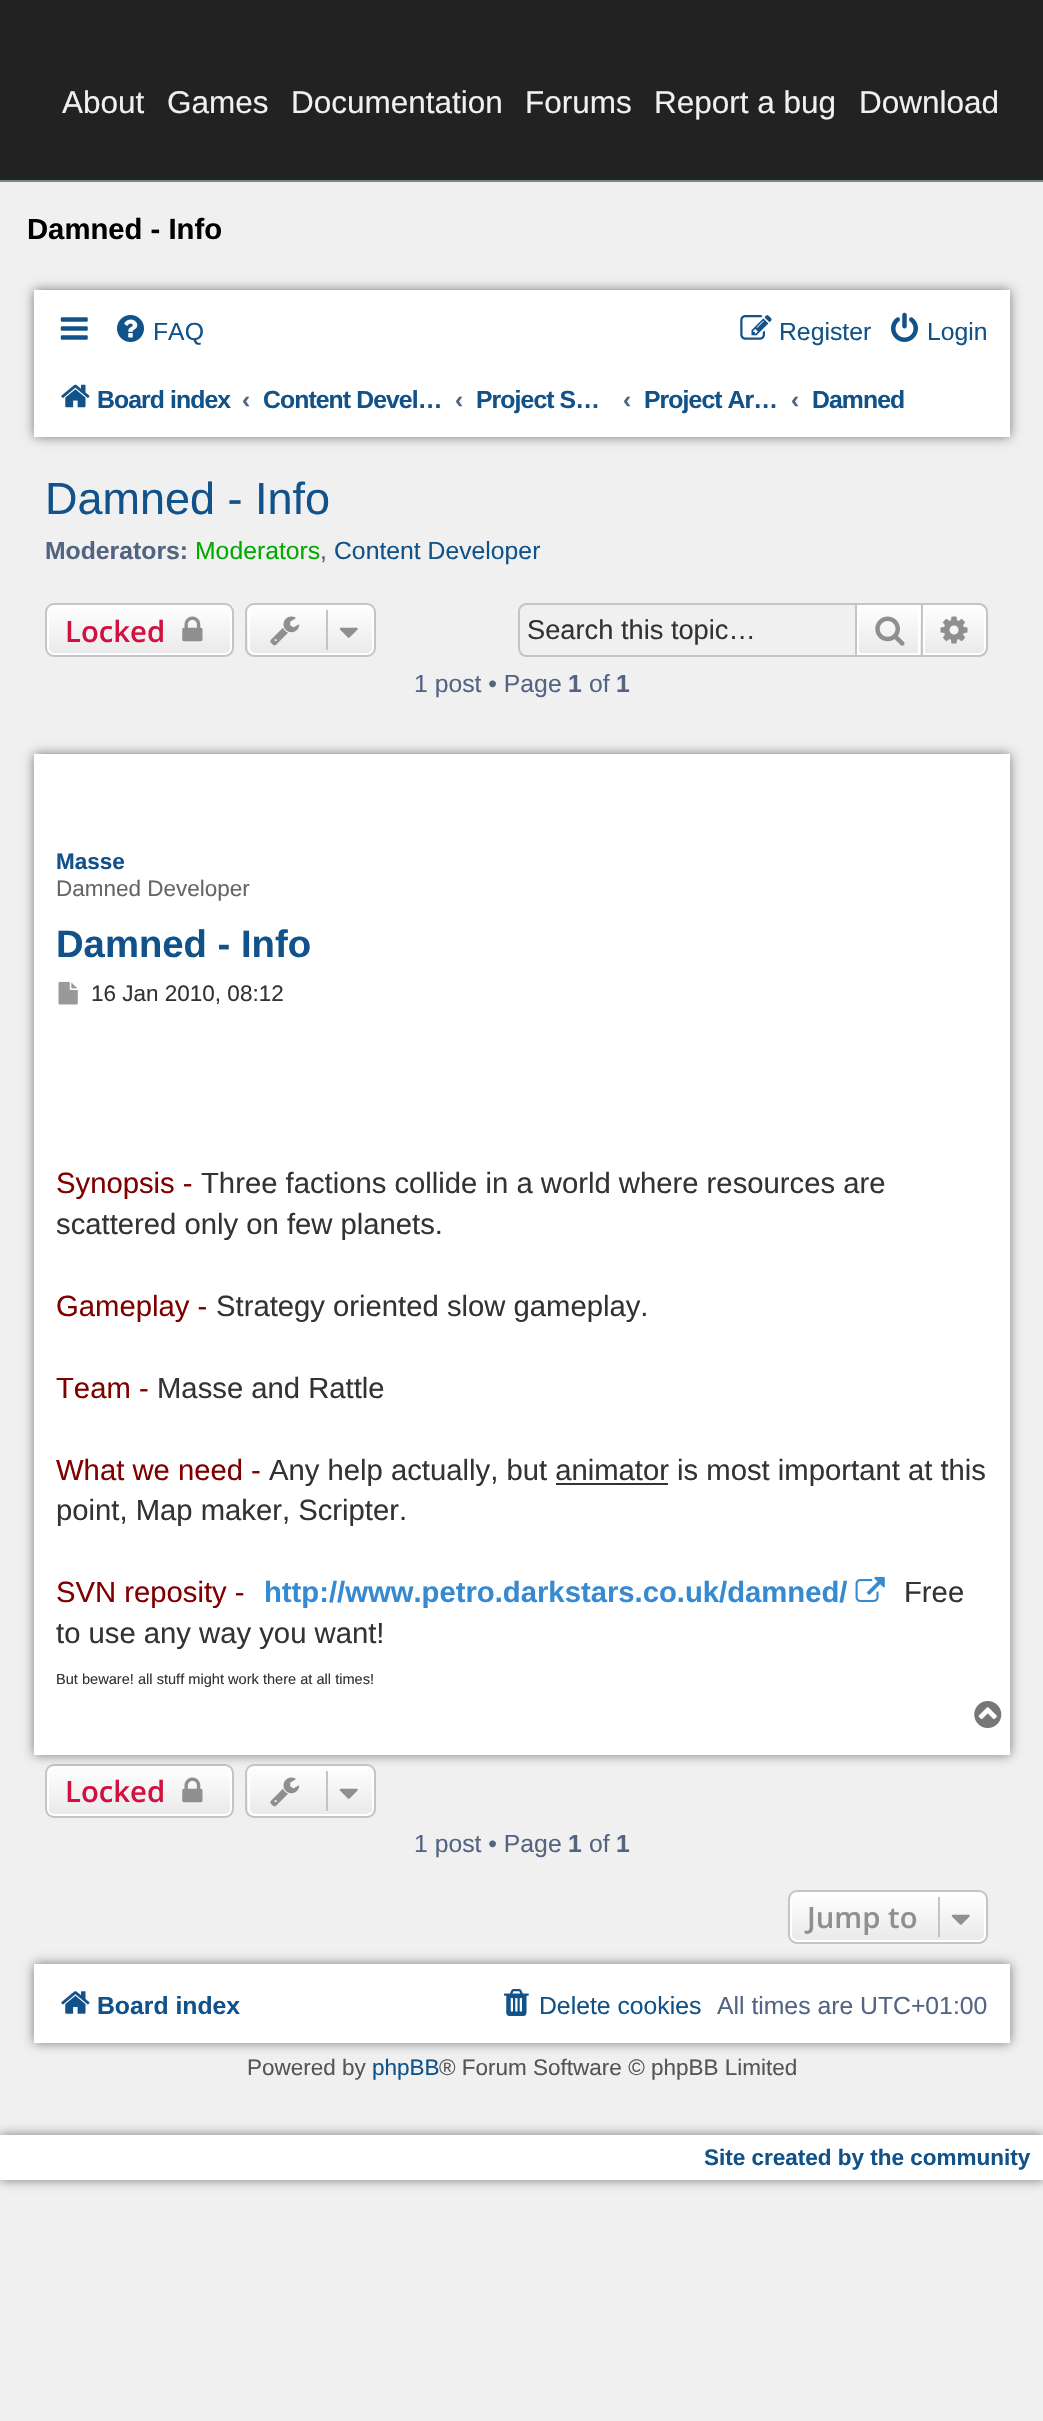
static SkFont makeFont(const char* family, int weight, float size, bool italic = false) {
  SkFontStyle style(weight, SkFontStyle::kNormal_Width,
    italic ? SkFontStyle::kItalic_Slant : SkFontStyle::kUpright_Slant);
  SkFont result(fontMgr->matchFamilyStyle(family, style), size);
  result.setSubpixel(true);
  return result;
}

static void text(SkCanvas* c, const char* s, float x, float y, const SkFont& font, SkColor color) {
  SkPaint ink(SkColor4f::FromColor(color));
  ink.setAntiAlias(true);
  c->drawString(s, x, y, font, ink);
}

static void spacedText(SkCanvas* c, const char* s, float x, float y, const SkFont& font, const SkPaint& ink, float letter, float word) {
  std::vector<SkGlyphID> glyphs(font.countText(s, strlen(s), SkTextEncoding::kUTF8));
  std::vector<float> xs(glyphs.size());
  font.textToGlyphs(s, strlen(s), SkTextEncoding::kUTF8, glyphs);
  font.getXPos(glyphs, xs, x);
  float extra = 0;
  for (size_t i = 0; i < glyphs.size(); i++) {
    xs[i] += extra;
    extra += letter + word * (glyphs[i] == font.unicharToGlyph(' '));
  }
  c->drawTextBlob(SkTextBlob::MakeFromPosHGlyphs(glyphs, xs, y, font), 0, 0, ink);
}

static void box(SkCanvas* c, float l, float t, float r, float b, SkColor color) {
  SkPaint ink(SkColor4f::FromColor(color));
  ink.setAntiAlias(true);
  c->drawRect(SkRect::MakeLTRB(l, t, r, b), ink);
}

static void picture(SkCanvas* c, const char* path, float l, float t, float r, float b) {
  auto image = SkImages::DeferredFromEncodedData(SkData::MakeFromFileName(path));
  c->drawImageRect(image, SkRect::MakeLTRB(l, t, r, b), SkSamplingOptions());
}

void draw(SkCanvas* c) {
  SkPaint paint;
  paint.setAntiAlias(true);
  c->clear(0xfff0f0f0);
  box(c, 0, 0, 1043, 180, 0xff222222);
  box(c, 0, 180, 1043, 182, 0xff778888);
  SkFont face1 = makeFont("Liberation Sans", 400, 31.5f);
  text(c, "About", 62, 113, face1, 0xfff0f0f0);
  text(c, "Games", 167, 113, face1, 0xfff0f0f0);
  text(c, "Documentation", 291, 113, face1, 0xfff0f0f0);
  text(c, "Forums", 525, 113, face1, 0xfff0f0f0);
  text(c, "Report a bug", 654, 113, face1, 0xfff0f0f0);
  text(c, "Download", 859, 113, face1, 0xfff0f0f0);
  SkFont face2 = makeFont("Liberation Sans", 700, 29.25f);
  text(c, "Damned - Info", 27, 239, face2, 0xff000000);
  paint.setColor(0x80000000);
  paint.setMaskFilter(SkMaskFilter::MakeBlur(kNormal_SkBlurStyle, 5.5f));
  c->drawRect(SkRect::MakeLTRB(34, 290, 1010, 437), paint);
  paint.setMaskFilter(nullptr);
  box(c, 34, 290, 1010, 437, 0xffffffff);
  picture(c, "img_01.png", 60, 317, 88, 340);
  picture(c, "img_02.png", 117, 315, 144, 342);
  SkFont face3 = makeFont("Liberation Sans", 400, 24.75f);
  text(c, "FAQ", 153, 340, face3, 0xff105289);
  picture(c, "img_03.png", 740, 315, 772, 340);
  text(c, "Register", 779, 340, face3, 0xff105289);
  picture(c, "img_04.png", 891, 312, 918, 342);
  text(c, "Login", 927, 340, face3, 0xff105289);
  picture(c, "img_05.png", 61, 384, 90, 408);
  SkFont face4 = makeFont("Liberation Sans", 700, 24.75f);
  paint.setColor(0xff105289);
  spacedText(c, "Board index", 97, 408, face4, paint, -0.9f, 0);
  text(c, "‹", 242, 408, face4, 0xff536482);
  spacedText(c, "Content Devel…", 263, 408, face4, paint, -0.9f, 0);
  text(c, "‹", 455, 408, face4, 0xff536482);
  spacedText(c, "Project S…", 476, 408, face4, paint, -0.9f, 0);
  text(c, "‹", 623, 408, face4, 0xff536482);
  spacedText(c, "Project Ar…", 644, 408, face4, paint, -0.9f, 0);
  text(c, "‹", 791, 408, face4, 0xff536482);
  spacedText(c, "Damned", 812, 408, face4, paint, -0.9f, 0);
  SkFont face5 = makeFont("Liberation Sans", 400, 45);
  text(c, "Damned - Info", 45, 514, face5, 0xff105289);
  text(c, "Moderators:", 45, 559, face4, 0xff536482);
  text(c, "Moderators", 195, 559, face3, 0xff00aa00);
  text(c, ",", 320, 559, face3, 0xff536482);
  text(c, "Content Developer", 334, 559, face3, 0xff105289);
  c->save();
  c->clipPath(SkPathBuilder().moveTo(54, 603).lineTo(225, 603).cubicTo(230, 603, 234, 607, 234, 612).lineTo(234, 648).cubicTo(234, 653, 230, 657, 225, 657).lineTo(54, 657).cubicTo(49, 657, 45, 653, 45, 648).lineTo(45, 612).cubicTo(45, 607, 49, 603, 54, 603).close().detach(), true);
  {
    const SkColor colors[] = {0xffffffff, 0xffe9e9e9};
    const float stops[] = {0, 1};
    const SkPoint ends[] = {{140, 605}, {140, 655}};
    paint.setShader(SkGradientShader::MakeLinear(ends, colors, stops, 2, SkTileMode::kClamp));
    paint.setAlpha(255);
  }
  c->drawRect(SkRect::MakeLTRB(45, 605, 234, 655), paint);
  c->restore();
  paint.setStyle(SkPaint::kStroke_Style);
  paint.setStrokeWidth(2);
  paint.setShader(nullptr);
  paint.setColor(0xffffffff);
  c->drawRoundRect(SkRect::MakeLTRB(48, 606, 231, 654), 6, 6, paint);
  paint.setColor(0xffc7c3bf);
  c->drawRoundRect(SkRect::MakeLTRB(46, 604, 233, 656), 8, 8, paint);
  SkFont face6 = makeFont("Open Sans", 600, 29.25f);
  text(c, "Locked", 65, 642, face6, 0xffd31141);
  picture(c, "img_06.png", 182, 616, 203, 642);
  c->save();
  c->clipPath(SkPathBuilder().moveTo(254, 603).lineTo(367, 603).cubicTo(372, 603, 376, 607, 376, 612).lineTo(376, 648).cubicTo(376, 653, 372, 657, 367, 657).lineTo(254, 657).cubicTo(249, 657, 245, 653, 245, 648).lineTo(245, 612).cubicTo(245, 607, 249, 603, 254, 603).close().detach(), true);
  paint.setStyle(SkPaint::kFill_Style);
  {
    const SkColor colors[] = {0xffffffff, 0xffe9e9e9};
    const float stops[] = {0, 1};
    const SkPoint ends[] = {{311, 605}, {311, 655}};
    paint.setShader(SkGradientShader::MakeLinear(ends, colors, stops, 2, SkTileMode::kClamp));
    paint.setAlpha(255);
  }
  c->drawRect(SkRect::MakeLTRB(245, 605, 376, 655), paint);
  c->restore();
  paint.setStyle(SkPaint::kStroke_Style);
  paint.setShader(nullptr);
  paint.setColor(0xffffffff);
  c->drawRoundRect(SkRect::MakeLTRB(249, 606, 373, 654), 6, 6, paint);
  paint.setColor(0xffc7c3bf);
  c->drawRoundRect(SkRect::MakeLTRB(246, 604, 375, 656), 8, 8, paint);
  picture(c, "img_07.png", 270, 616, 300, 646);
  box(c, 326, 610, 328, 650, 0xffc7c3bf);
  picture(c, "img_08.png", 339, 627, 358, 638);
  paint.setStyle(SkPaint::kFill_Style);
  c->drawPath(SkPathBuilder(SkPathFillType::kEvenOdd).moveTo(526, 603).lineTo(855, 603).lineTo(855, 657).lineTo(526, 657).cubicTo(522, 657, 518, 653, 518, 648).lineTo(518, 612).cubicTo(518, 607, 522, 603, 526, 603).close().moveTo(526, 605).lineTo(855, 605).lineTo(855, 655).lineTo(526, 655).cubicTo(523, 655, 520, 652, 520, 648).lineTo(520, 612).cubicTo(520, 608, 523, 605, 526, 605).close().detach(), paint);
  SkFont face7 = makeFont("Liberation Sans", 400, 27.25f);
  text(c, "Search this topic…", 527, 639, face7, 0xff333333);
  {
    const SkColor colors[] = {0xffffffff, 0xffe9e9e9};
    const float stops[] = {0, 1};
    const SkPoint ends[] = {{889, 605}, {889, 655}};
    paint.setShader(SkGradientShader::MakeLinear(ends, colors, stops, 2, SkTileMode::kClamp));
    paint.setAlpha(255);
  }
  c->drawRect(SkRect::MakeLTRB(859, 605, 921, 655), paint);
  paint.setStyle(SkPaint::kStroke_Style);
  paint.setShader(nullptr);
  paint.setColor(0xffffffff);
  c->drawRect(SkRect::MakeLTRB(858, 606, 919, 654), paint);
  paint.setColor(0xffc7c3bf);
  c->drawRect(SkRect::MakeLTRB(856, 604, 922, 656), paint);
  picture(c, "img_09.png", 875, 616, 905, 646);
  paint.setStyle(SkPaint::kFill_Style);
  {
    const SkColor colors[] = {0xffffffff, 0xffe9e9e9};
    const float stops[] = {0, 1};
    const SkPoint ends[] = {{954, 605}, {954, 655}};
    paint.setShader(SkGradientShader::MakeLinear(ends, colors, stops, 2, SkTileMode::kClamp));
    paint.setAlpha(255);
  }
  c->drawPath(SkPathBuilder().moveTo(924, 606).lineTo(979, 606).cubicTo(982.5f, 606, 985, 608.5f, 985, 612).lineTo(985, 648).cubicTo(985, 651.5f, 982.5f, 654, 979, 654).lineTo(924, 654).close().detach(), paint);
  paint.setStyle(SkPaint::kStroke_Style);
  paint.setShader(nullptr);
  paint.setColor(0xffffffff);
  c->drawPath(SkPathBuilder().moveTo(924, 606).lineTo(979, 606).cubicTo(982.5f, 606, 985, 608.5f, 985, 612).lineTo(985, 648).cubicTo(985, 651.5f, 982.5f, 654, 979, 654).lineTo(924, 654).close().detach(), paint);
  paint.setStyle(SkPaint::kFill_Style);
  paint.setColor(0xffc7c3bf);
  c->drawPath(SkPathBuilder(SkPathFillType::kEvenOdd).moveTo(922, 603).lineTo(979, 603).cubicTo(984, 603, 988, 607, 988, 612).lineTo(988, 648).cubicTo(988, 653, 984, 657, 979, 657).lineTo(922, 657).close().moveTo(922, 605).lineTo(979, 605).cubicTo(982, 605, 986, 608, 986, 612).lineTo(986, 648).cubicTo(986, 652, 982, 655, 979, 655).lineTo(922, 655).close().detach(), paint);
  picture(c, "img_10.png", 940, 616, 968, 644);
  text(c, "1 post • Page", 414, 692, face3, 0xff536482);
  text(c, "1", 568, 692, face4, 0xff536482);
  text(c, "of", 589, 692, face3, 0xff536482);
  text(c, "1", 616, 692, face4, 0xff536482);
  c->save();
  c->clipPath(SkPathBuilder().moveTo(54, 1764).lineTo(225, 1764).cubicTo(230, 1764, 234, 1768, 234, 1773).lineTo(234, 1809).cubicTo(234, 1814, 230, 1818, 225, 1818).lineTo(54, 1818).cubicTo(49, 1818, 45, 1814, 45, 1809).lineTo(45, 1773).cubicTo(45, 1768, 49, 1764, 54, 1764).close().detach(), true);
  {
    const SkColor colors[] = {0xffffffff, 0xffe9e9e9};
    const float stops[] = {0, 1};
    const SkPoint ends[] = {{140, 1766}, {140, 1816}};
    paint.setShader(SkGradientShader::MakeLinear(ends, colors, stops, 2, SkTileMode::kClamp));
    paint.setAlpha(255);
  }
  c->drawRect(SkRect::MakeLTRB(45, 1766, 234, 1816), paint);
  c->restore();
  paint.setStyle(SkPaint::kStroke_Style);
  paint.setShader(nullptr);
  paint.setColor(0xffffffff);
  c->drawRoundRect(SkRect::MakeLTRB(48, 1767, 231, 1815), 6, 6, paint);
  paint.setColor(0xffc7c3bf);
  c->drawRoundRect(SkRect::MakeLTRB(46, 1765, 233, 1817), 8, 8, paint);
  paint.setStyle(SkPaint::kFill_Style);
  paint.setColor(0x80000000);
  paint.setMaskFilter(SkMaskFilter::MakeBlur(kNormal_SkBlurStyle, 5.5f));
  c->drawRect(SkRect::MakeLTRB(34, 754, 1010, 1755), paint);
  paint.setMaskFilter(nullptr);
  box(c, 34, 754, 1010, 1755, 0xffffffff);
  SkFont face8 = makeFont("Liberation Sans", 700, 22.5f);
  text(c, "Masse", 56, 869, face8, 0xff105289);
  SkFont face9 = makeFont("Liberation Sans", 400, 22.5f);
  text(c, "Damned Developer", 56, 896, face9, 0xff666666);
  SkFont face10 = makeFont("Liberation Sans", 700, 38.25f);
  text(c, "Damned - Info", 56, 957, face10, 0xff105289);
  picture(c, "img_11.png", 58, 981, 78, 1005);
  text(c, "16 Jan 2010, 08:12", 91, 1001, face9, 0xff333333);
  SkFont face11 = makeFont("Liberation Sans", 400, 29.25f);
  text(c, "Synopsis -", 56, 1193, face11, 0xff800000);
  text(c, "Three factions collide in a world where resources are", 201, 1193, face11, 0xff333333);
  text(c, "scattered only on few planets.", 56, 1234, face11, 0xff333333);
  text(c, "Gameplay -", 56, 1316, face11, 0xff800000);
  text(c, "Strategy oriented slow gameplay.", 216, 1316, face11, 0xff333333);
  text(c, "Team -", 56, 1398, face11, 0xff800000);
  text(c, "Masse and Rattle", 157, 1398, face11, 0xff333333);
  text(c, "What we need -", 56, 1480, face11, 0xff800000);
  text(c, "Any help actually, but animator is most important at this", 269, 1480, face11, 0xff333333);
  box(c, 556, 1483, 668, 1485, 0xff333333);
  text(c, "point, Map maker, Scripter.", 56, 1520, face11, 0xff333333);
  text(c, "SVN reposity -", 56, 1602, face11, 0xff800000);
  text(c, "http://www.petro.darkstars.co.uk/damned/", 264, 1602, face2, 0xff368ad2);
  picture(c, "img_12.png", 855, 1576, 885, 1602);
  text(c, "Free", 904, 1602, face11, 0xff333333);
  text(c, "to use any way you want!", 56, 1643, face11, 0xff333333);
  SkFont face12 = makeFont("Liberation Sans", 400, 14.6f);
  text(c, "But beware! all stuff might work there at all times!", 56, 1684, face12, 0xff333333);
  picture(c, "img_13.png", 974, 1701, 1002, 1728);
  text(c, "Locked", 65, 1802, face6, 0xffd31141);
  picture(c, "img_06.png", 182, 1777, 203, 1803);
  c->save();
  c->clipPath(SkPathBuilder().moveTo(254, 1764).lineTo(367, 1764).cubicTo(372, 1764, 376, 1768, 376, 1773).lineTo(376, 1809).cubicTo(376, 1814, 372, 1818, 367, 1818).lineTo(254, 1818).cubicTo(249, 1818, 245, 1814, 245, 1809).lineTo(245, 1773).cubicTo(245, 1768, 249, 1764, 254, 1764).close().detach(), true);
  {
    const SkColor colors[] = {0xffffffff, 0xffe9e9e9};
    const float stops[] = {0, 1};
    const SkPoint ends[] = {{311, 1766}, {311, 1816}};
    paint.setShader(SkGradientShader::MakeLinear(ends, colors, stops, 2, SkTileMode::kClamp));
    paint.setAlpha(255);
  }
  c->drawRect(SkRect::MakeLTRB(245, 1766, 376, 1816), paint);
  c->restore();
  paint.setStyle(SkPaint::kStroke_Style);
  paint.setShader(nullptr);
  paint.setColor(0xffffffff);
  c->drawRoundRect(SkRect::MakeLTRB(249, 1767, 373, 1815), 6, 6, paint);
  paint.setColor(0xffc7c3bf);
  c->drawRoundRect(SkRect::MakeLTRB(246, 1765, 375, 1817), 8, 8, paint);
  picture(c, "img_07.png", 270, 1777, 300, 1807);
  box(c, 326, 1771, 328, 1811, 0xffc7c3bf);
  picture(c, "img_08.png", 339, 1788, 358, 1799);
  text(c, "1 post • Page", 414, 1852, face3, 0xff536482);
  text(c, "1", 568, 1852, face4, 0xff536482);
  text(c, "of", 589, 1852, face3, 0xff536482);
  text(c, "1", 616, 1852, face4, 0xff536482);
  c->save();
  c->clipPath(SkPathBuilder().moveTo(797, 1890).lineTo(979, 1890).cubicTo(984, 1890, 988, 1894, 988, 1899).lineTo(988, 1935).cubicTo(988, 1940, 984, 1944, 979, 1944).lineTo(797, 1944).cubicTo(792, 1944, 788, 1940, 788, 1935).lineTo(788, 1899).cubicTo(788, 1894, 792, 1890, 797, 1890).close().detach(), true);
  paint.setStyle(SkPaint::kFill_Style);
  {
    const SkColor colors[] = {0xffffffff, 0xffe9e9e9};
    const float stops[] = {0, 1};
    const SkPoint ends[] = {{888, 1892}, {888, 1942}};
    paint.setShader(SkGradientShader::MakeLinear(ends, colors, stops, 2, SkTileMode::kClamp));
    paint.setAlpha(255);
  }
  c->drawRect(SkRect::MakeLTRB(788, 1892, 988, 1942), paint);
  c->restore();
  paint.setStyle(SkPaint::kStroke_Style);
  paint.setShader(nullptr);
  paint.setColor(0xffffffff);
  c->drawRoundRect(SkRect::MakeLTRB(791, 1893, 985, 1941), 6, 6, paint);
  paint.setColor(0xffc7c3bf);
  c->drawRoundRect(SkRect::MakeLTRB(789, 1891, 987, 1943), 8, 8, paint);
  text(c, "Jump to", 807, 1928, face6, 0xff8f8f8f);
  box(c, 938, 1897, 940, 1937, 0xffc7c3bf);
  picture(c, "img_08.png", 951, 1914, 970, 1925);
  paint.setStyle(SkPaint::kFill_Style);
  paint.setColor(0x80000000);
  paint.setMaskFilter(SkMaskFilter::MakeBlur(kNormal_SkBlurStyle, 5.5f));
  c->drawRect(SkRect::MakeLTRB(34, 1964, 1010, 2043), paint);
  paint.setMaskFilter(nullptr);
  box(c, 34, 1964, 1010, 2043, 0xffffffff);
  picture(c, "img_14.png", 61, 1991, 90, 2014);
  text(c, "Board index", 97, 2014, face4, 0xff105289);
  picture(c, "img_15.png", 504, 1989, 529, 2016);
  text(c, "Delete cookies", 539, 2014, face3, 0xff105289);
  text(c, "All times are UTC+01:00", 717, 2014, face3, 0xff536482);
  text(c, "Powered by", 247, 2075, face9, 0xff555555);
  text(c, "phpBB", 372, 2075, face9, 0xff105289);
  text(c, "® Forum Software © phpBB Limited", 439, 2075, face9, 0xff555555);
  paint.setMaskFilter(SkMaskFilter::MakeBlur(kNormal_SkBlurStyle, 5.5f));
  c->drawRect(SkRect::MakeLTRB(0, 2135, 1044, 2180), paint);
  paint.setMaskFilter(nullptr);
  box(c, 0, 2135, 1043, 2180, 0xffffffff);
  text(c, "Site created by the community", 704, 2165, face8, 0xff105289);
}
